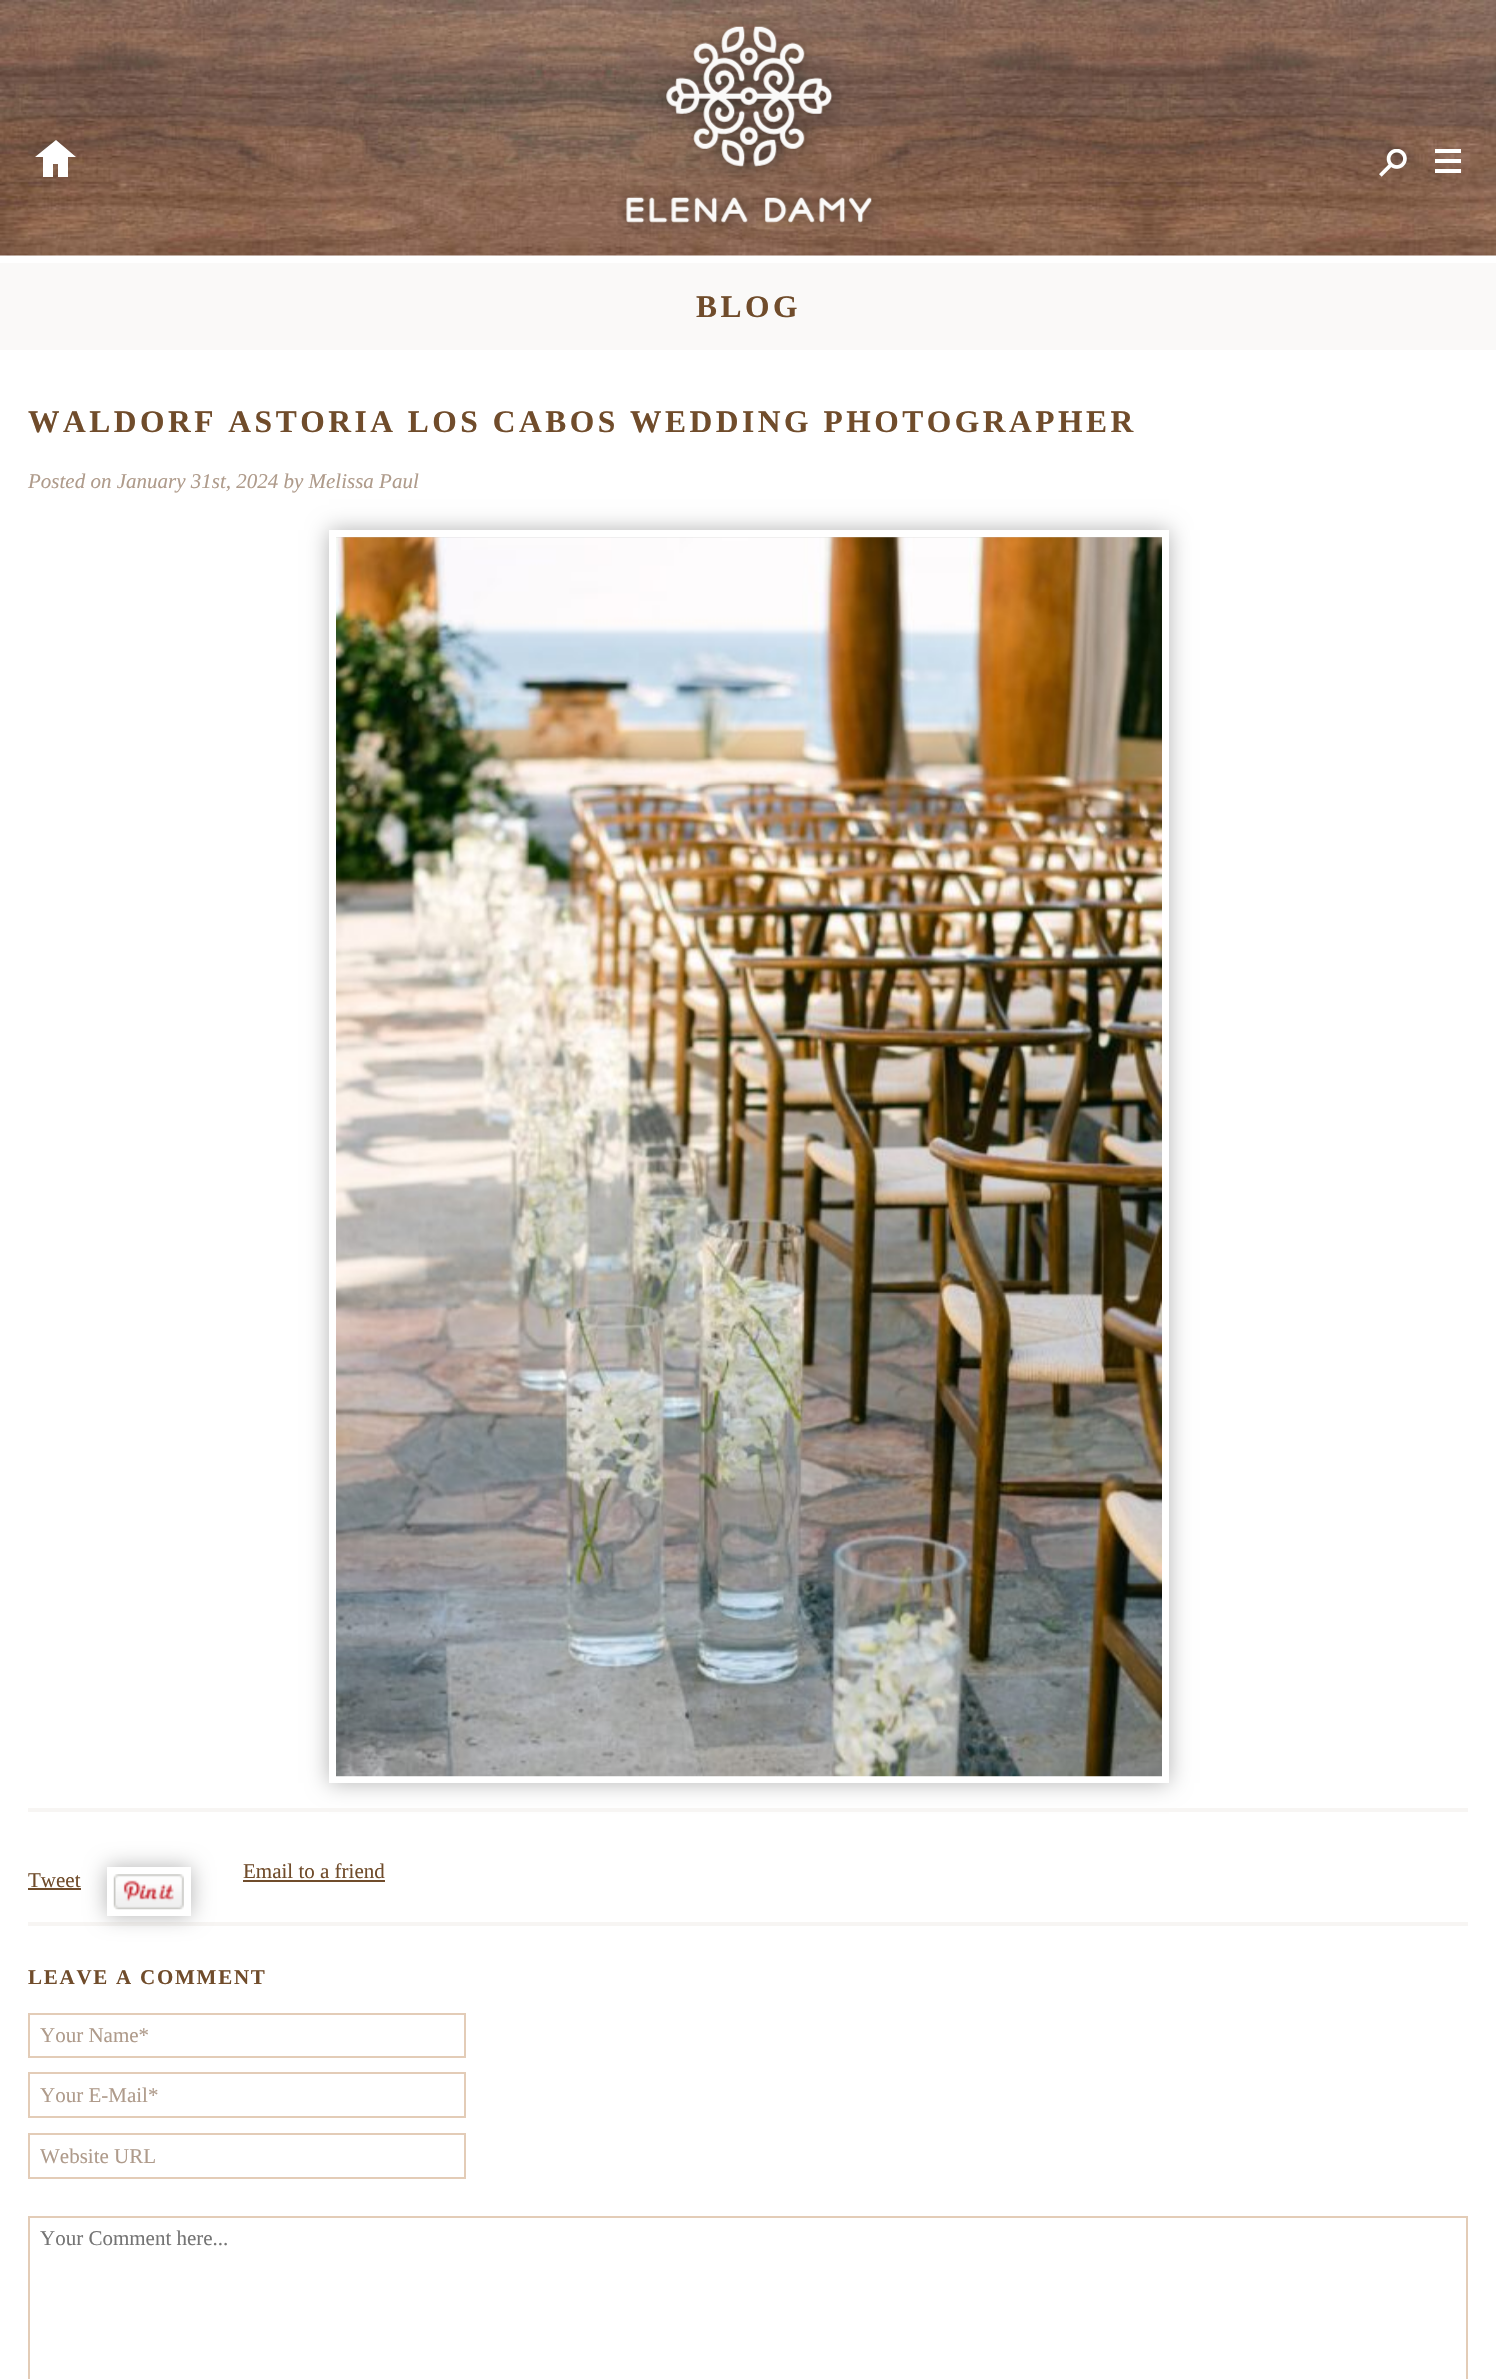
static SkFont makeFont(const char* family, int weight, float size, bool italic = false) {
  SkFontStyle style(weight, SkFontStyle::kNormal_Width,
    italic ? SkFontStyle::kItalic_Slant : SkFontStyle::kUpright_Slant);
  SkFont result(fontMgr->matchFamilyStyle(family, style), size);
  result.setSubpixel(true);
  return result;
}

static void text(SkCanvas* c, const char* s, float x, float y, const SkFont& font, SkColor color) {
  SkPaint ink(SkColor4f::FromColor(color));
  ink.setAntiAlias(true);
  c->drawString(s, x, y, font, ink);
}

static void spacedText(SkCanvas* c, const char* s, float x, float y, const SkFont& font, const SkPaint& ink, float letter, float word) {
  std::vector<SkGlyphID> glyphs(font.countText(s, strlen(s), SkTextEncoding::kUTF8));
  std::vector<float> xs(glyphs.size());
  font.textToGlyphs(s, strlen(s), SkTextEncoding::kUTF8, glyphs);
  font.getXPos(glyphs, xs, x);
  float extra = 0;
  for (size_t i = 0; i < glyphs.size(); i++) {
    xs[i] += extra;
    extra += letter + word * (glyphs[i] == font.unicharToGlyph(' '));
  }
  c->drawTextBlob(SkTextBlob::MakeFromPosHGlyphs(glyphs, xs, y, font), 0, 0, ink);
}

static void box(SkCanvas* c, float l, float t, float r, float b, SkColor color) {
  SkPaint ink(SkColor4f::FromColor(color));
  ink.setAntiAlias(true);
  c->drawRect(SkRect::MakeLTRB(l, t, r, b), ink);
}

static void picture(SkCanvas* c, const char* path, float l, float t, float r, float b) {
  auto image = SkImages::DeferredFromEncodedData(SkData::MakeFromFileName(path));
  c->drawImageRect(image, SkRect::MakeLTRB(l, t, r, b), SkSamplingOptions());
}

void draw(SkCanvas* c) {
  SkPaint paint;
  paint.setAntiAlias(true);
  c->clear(0xffffffff);
  picture(c, "img_01.png", 0, 0, 1496, 256);
  paint.setColor(0xffffffff);
  c->drawPath(SkPathBuilder().moveTo(56, 140).lineTo(35, 157).lineTo(43, 157).lineTo(43, 177).lineTo(53, 177).lineTo(53, 164).lineTo(58, 164).lineTo(58, 177).lineTo(68, 177).lineTo(68, 157).lineTo(76, 157).close().detach(), paint);
  picture(c, "img_02.png", 617, 18, 880, 234);
  picture(c, "img_03.png", 1379, 149, 1407, 177);
  box(c, 1435, 149, 1461, 153, 0xffffffff);
  box(c, 1435, 159, 1461, 163, 0xffffffff);
  box(c, 1435, 169, 1461, 173, 0xffffffff);
  box(c, 0, 263, 1496, 350, 0xfffaf9f8);
  SkFont face1 = makeFont("Liberation Serif", 700, 31.5f);
  paint.setColor(0xff704c2b);
  spacedText(c, "BLOG", 696, 317, face1, paint, 3.5f, 0);
  spacedText(c, "WALDORF ASTORIA LOS CABOS WEDDING PHOTOGRAPHER", 28, 432, face1, paint, 3.5f, 0);
  SkFont face2 = makeFont("Liberation Serif", 400, 21, true);
  text(c, "Posted on January 31st, 2024 by Melissa Paul", 28, 488, face2, 0xffaf9b8b);
  paint.setColor(0x4d000000);
  paint.setMaskFilter(SkMaskFilter::MakeBlur(kNormal_SkBlurStyle, 10.5f));
  c->drawRect(SkRect::MakeLTRB(329, 530, 1169, 1783), paint);
  paint.setMaskFilter(nullptr);
  paint.setStyle(SkPaint::kStroke_Style);
  paint.setStrokeWidth(7);
  paint.setColor(0xffffffff);
  c->drawRect(SkRect::MakeLTRB(332.5f, 533.5f, 1165.5f, 1779.5f), paint);
  picture(c, "img_04.png", 336, 537, 1162, 1777);
  box(c, 28, 1808, 1468, 1812, 0xfff7f5f3);
  box(c, 28, 1888, 81, 1890, 0xff704c2b);
  box(c, 28, 1922, 1468, 1926, 0xfff7f5f3);
  c->save();
  c->clipPath(SkPathBuilder(SkPathFillType::kEvenOdd).moveTo(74, 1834).lineTo(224, 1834).lineTo(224, 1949).lineTo(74, 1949).close().moveTo(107, 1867).lineTo(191, 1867).lineTo(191, 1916).lineTo(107, 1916).close().detach(), true);
  paint.setStyle(SkPaint::kFill_Style);
  paint.setColor(0x4d000000);
  paint.setMaskFilter(SkMaskFilter::MakeBlur(kNormal_SkBlurStyle, 10.5f));
  c->drawRect(SkRect::MakeLTRB(107, 1867, 191, 1916), paint);
  paint.setMaskFilter(nullptr);
  c->restore();
  paint.setStyle(SkPaint::kStroke_Style);
  paint.setColor(0xffffffff);
  c->drawRect(SkRect::MakeLTRB(110.5f, 1870.5f, 187.5f, 1912.5f), paint);
  picture(c, "img_05.png", 113, 1874, 184, 1910);
  SkFont face3 = makeFont("Liberation Serif", 400, 21);
  text(c, "Email to a friend", 243, 1878, face3, 0xff704c2b);
  box(c, 243, 1880, 385, 1882, 0xff704c2b);
  text(c, "Tweet", 28, 1887, face3, 0xff704c2b);
  SkFont face4 = makeFont("Liberation Serif", 700, 21);
  paint.setStyle(SkPaint::kFill_Style);
  paint.setColor(0xff704c2b);
  spacedText(c, "LEAVE A COMMENT", 28, 1984, face4, paint, 1.75f, 0);
  paint.setStyle(SkPaint::kStroke_Style);
  paint.setStrokeWidth(2);
  paint.setColor(0xffe3ccb7);
  c->drawRect(SkRect::MakeLTRB(29, 2014, 465, 2057), paint);
  text(c, "Your Name*", 40, 2042, face3, 0xffaf9b8b);
  c->drawRect(SkRect::MakeLTRB(29, 2073, 465, 2117), paint);
  text(c, "Your E-Mail*", 40, 2102, face3, 0xffaf9b8b);
  c->drawRect(SkRect::MakeLTRB(29, 2134, 465, 2178), paint);
  text(c, "Website URL", 40, 2163, face3, 0xffaf9b8b);
  c->drawRect(SkRect::MakeLTRB(29, 2217, 1467, 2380), paint);
  text(c, "Your Comment here...", 40, 2245, face3, 0xff757575);
}
